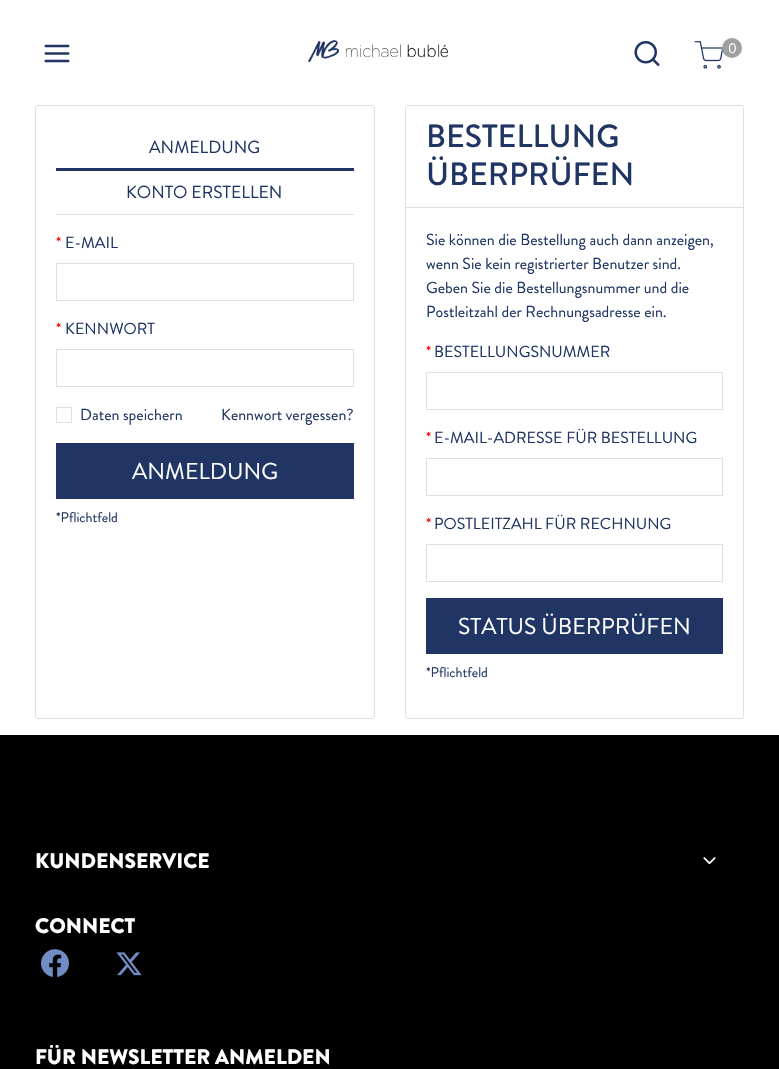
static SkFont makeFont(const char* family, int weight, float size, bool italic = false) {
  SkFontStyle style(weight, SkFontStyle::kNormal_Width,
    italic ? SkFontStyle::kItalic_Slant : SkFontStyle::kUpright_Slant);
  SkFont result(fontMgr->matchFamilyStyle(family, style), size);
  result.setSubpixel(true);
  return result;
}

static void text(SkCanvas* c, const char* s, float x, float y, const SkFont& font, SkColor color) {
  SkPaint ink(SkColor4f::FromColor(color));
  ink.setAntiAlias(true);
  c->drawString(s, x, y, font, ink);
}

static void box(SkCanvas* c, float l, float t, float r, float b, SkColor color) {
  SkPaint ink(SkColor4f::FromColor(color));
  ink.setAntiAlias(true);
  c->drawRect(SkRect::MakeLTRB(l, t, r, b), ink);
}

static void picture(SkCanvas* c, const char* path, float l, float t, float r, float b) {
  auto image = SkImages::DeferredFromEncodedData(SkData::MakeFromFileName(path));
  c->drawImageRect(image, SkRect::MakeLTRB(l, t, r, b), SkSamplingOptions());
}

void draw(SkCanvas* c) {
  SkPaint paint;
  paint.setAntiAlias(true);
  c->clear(0xffffffff);
  picture(c, "img_01.png", 44, 44, 70, 63);
  picture(c, "img_02.png", 308, 40, 448, 62);
  picture(c, "img_03.png", 634, 41, 660, 66);
  picture(c, "img_04.png", 694, 41, 723, 69);
  paint.setColor(0xffa0a0a0);
  c->drawCircle(732, 48, 10, paint);
  SkFont face1 = makeFont("Brandon Grotesque", 400, 14);
  text(c, "0", 728, 53, face1, 0xffffffff);
  paint.setStyle(SkPaint::kStroke_Style);
  paint.setStrokeWidth(1);
  paint.setColor(0xffe0e0e0);
  c->drawRoundRect(SkRect::MakeLTRB(35.5f, 105.5f, 374.5f, 718.5f), 2.5f, 2.5f, paint);
  box(c, 56, 214, 354, 215, 0xffe0e0e0);
  box(c, 56, 168, 354, 171, 0xff203563);
  SkFont face2 = makeFont("Brandon Grotesque", 400, 17.5f);
  text(c, "ANMELDUNG", 149, 153, face2, 0xff203563);
  text(c, "KONTO ERSTELLEN", 126, 198, face2, 0xff203563);
  SkFont face3 = makeFont("Brandon Grotesque", 400, 16);
  text(c, "*", 56, 248, face3, 0xffff0000);
  text(c, "E-MAIL", 65, 248, face3, 0xff203563);
  c->drawRect(SkRect::MakeLTRB(56.5f, 263.5f, 353.5f, 300.5f), paint);
  text(c, "*", 56, 334, face3, 0xffff0000);
  text(c, "KENNWORT", 65, 334, face3, 0xff203563);
  c->drawRect(SkRect::MakeLTRB(56.5f, 349.5f, 353.5f, 386.5f), paint);
  c->drawRect(SkRect::MakeLTRB(56.5f, 407.5f, 71.5f, 422.5f), paint);
  text(c, "Daten speichern", 80, 420, face3, 0xff203563);
  text(c, "Kennwort vergessen?", 221, 420, face3, 0xff203563);
  box(c, 56, 443, 354, 499, 0xff203563);
  SkFont face4 = makeFont("Brandon Grotesque", 400, 23);
  text(c, "ANMELDUNG", 132, 479, face4, 0xffffffff);
  text(c, "*Pflichtfeld", 56, 522, face1, 0xff203563);
  c->drawRoundRect(SkRect::MakeLTRB(405.5f, 105.5f, 743.5f, 718.5f), 2.5f, 2.5f, paint);
  paint.setStyle(SkPaint::kFill_Style);
  paint.setColor(0xffffffff);
  c->drawPath(SkPathBuilder().moveTo(408, 106).lineTo(741, 106).cubicTo(742, 106, 743, 107, 743, 108).lineTo(743, 208).lineTo(406, 208).lineTo(406, 108).cubicTo(406, 107, 407, 106, 408, 106).close().detach(), paint);
  box(c, 406, 207, 743, 208, 0xffdfdfdf);
  SkFont face5 = makeFont("Brandon Grotesque", 500, 32);
  text(c, "BESTELLUNG", 426, 147, face5, 0xff203563);
  text(c, "ÜBERPRÜFEN", 426, 185, face5, 0xff203563);
  text(c, "Sie können die Bestellung auch dann anzeigen,", 426, 245, face3, 0xff203563);
  text(c, "wenn Sie kein registrierter Benutzer sind.", 426, 269, face3, 0xff203563);
  text(c, "Geben Sie die Bestellungsnummer und die", 426, 293, face3, 0xff203563);
  text(c, "Postleitzahl der Rechnungsadresse ein.", 426, 317, face3, 0xff203563);
  text(c, "*", 426, 357, face3, 0xffff0000);
  text(c, "BESTELLUNGSNUMMER", 434, 357, face3, 0xff203563);
  paint.setStyle(SkPaint::kStroke_Style);
  paint.setColor(0xffe0e0e0);
  c->drawRect(SkRect::MakeLTRB(426.5f, 372.5f, 722.5f, 409.5f), paint);
  text(c, "*", 426, 443, face3, 0xffff0000);
  text(c, "E-MAIL-ADRESSE FÜR BESTELLUNG", 434, 443, face3, 0xff203563);
  c->drawRect(SkRect::MakeLTRB(426.5f, 458.5f, 722.5f, 495.5f), paint);
  text(c, "*", 426, 529, face3, 0xffff0000);
  text(c, "POSTLEITZAHL FÜR RECHNUNG", 434, 529, face3, 0xff203563);
  c->drawRect(SkRect::MakeLTRB(426.5f, 544.5f, 722.5f, 581.5f), paint);
  box(c, 426, 598, 723, 654, 0xff203563);
  text(c, "STATUS ÜBERPRÜFEN", 458, 634, face4, 0xffffffff);
  text(c, "*Pflichtfeld", 426, 677, face1, 0xff203563);
  box(c, 0, 735, 779, 1069, 0xff000000);
  SkFont face6 = makeFont("Brandon Grotesque", 900, 21);
  text(c, "KUNDENSERVICE", 35, 868, face6, 0xffffffff);
  picture(c, "img_05.png", 703, 857, 716, 865);
  text(c, "CONNECT", 35, 933, face6, 0xffffffff);
  picture(c, "img_06.png", 41, 949, 69, 977);
  picture(c, "img_07.png", 116, 952, 142, 976);
  text(c, "FÜR NEWSLETTER ANMELDEN", 35, 1064, face6, 0xffffffff);
}
